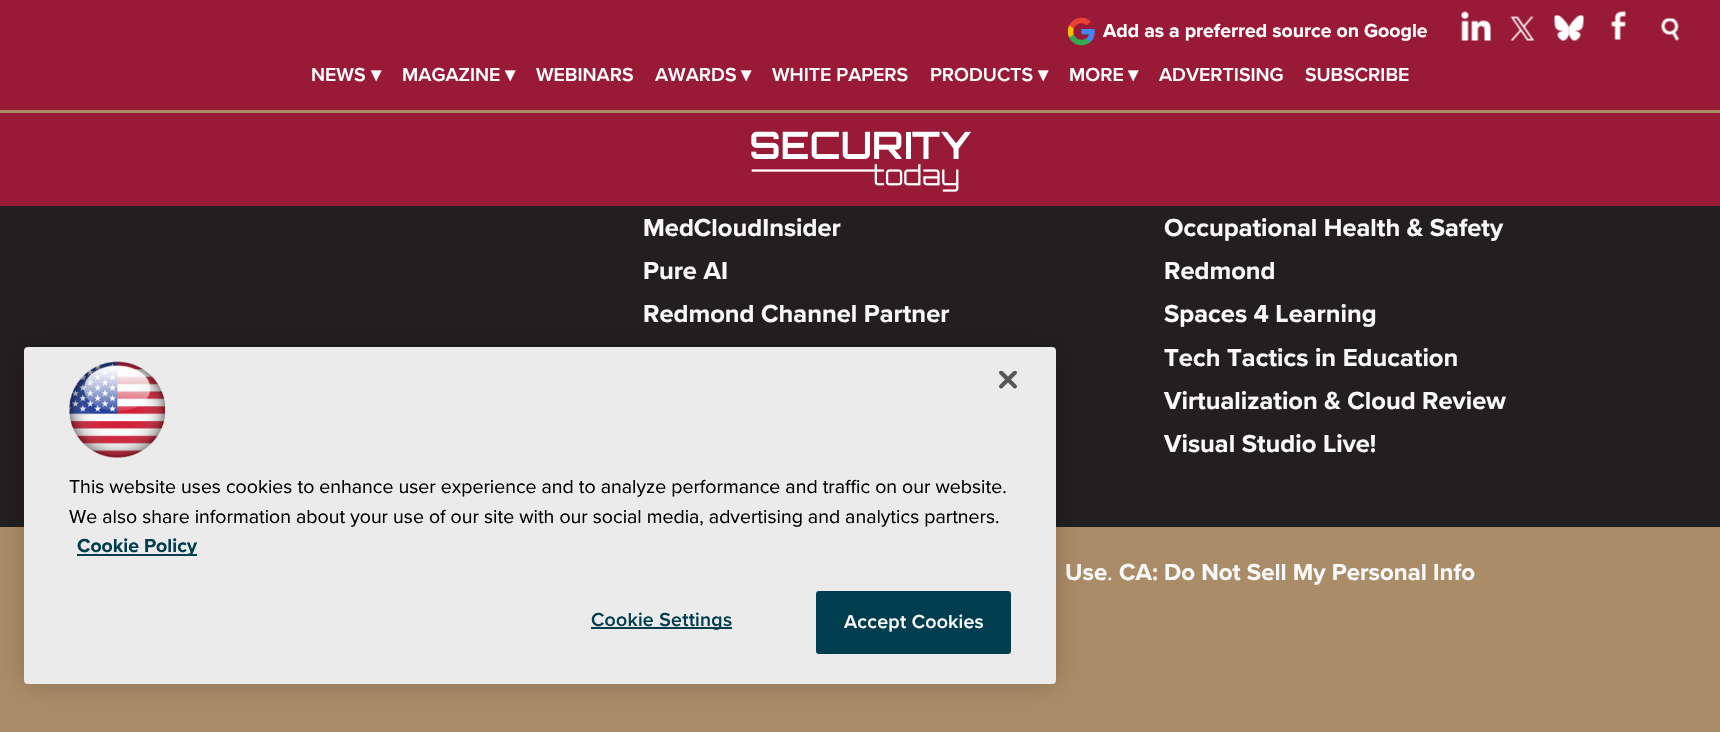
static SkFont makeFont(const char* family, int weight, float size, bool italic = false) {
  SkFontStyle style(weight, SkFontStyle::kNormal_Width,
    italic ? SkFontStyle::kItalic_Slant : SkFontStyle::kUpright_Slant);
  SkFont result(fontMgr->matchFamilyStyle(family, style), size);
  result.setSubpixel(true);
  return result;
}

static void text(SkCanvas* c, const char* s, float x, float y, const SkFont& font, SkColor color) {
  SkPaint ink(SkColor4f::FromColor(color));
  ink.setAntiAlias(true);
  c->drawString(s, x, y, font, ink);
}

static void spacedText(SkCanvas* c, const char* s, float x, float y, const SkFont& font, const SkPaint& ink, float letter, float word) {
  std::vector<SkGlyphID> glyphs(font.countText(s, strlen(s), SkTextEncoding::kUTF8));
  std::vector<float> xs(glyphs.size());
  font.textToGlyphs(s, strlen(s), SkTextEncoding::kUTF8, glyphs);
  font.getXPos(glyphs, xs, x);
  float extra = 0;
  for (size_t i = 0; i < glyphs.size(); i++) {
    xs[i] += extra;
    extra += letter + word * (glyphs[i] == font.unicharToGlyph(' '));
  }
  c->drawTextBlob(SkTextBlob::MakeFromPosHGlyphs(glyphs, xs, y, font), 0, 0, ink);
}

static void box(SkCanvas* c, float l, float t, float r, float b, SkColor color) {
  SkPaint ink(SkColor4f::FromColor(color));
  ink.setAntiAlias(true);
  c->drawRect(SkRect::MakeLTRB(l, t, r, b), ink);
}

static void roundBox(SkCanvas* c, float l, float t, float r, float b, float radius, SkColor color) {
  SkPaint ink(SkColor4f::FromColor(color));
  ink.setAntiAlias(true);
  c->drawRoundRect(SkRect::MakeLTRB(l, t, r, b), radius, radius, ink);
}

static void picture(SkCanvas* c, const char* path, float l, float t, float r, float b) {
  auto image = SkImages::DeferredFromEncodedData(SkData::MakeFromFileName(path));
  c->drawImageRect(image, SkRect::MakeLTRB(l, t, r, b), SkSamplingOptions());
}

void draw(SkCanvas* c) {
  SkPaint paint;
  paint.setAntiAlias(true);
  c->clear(0xff231f20);
  box(c, 0, 0, 1720, 110, 0xff991a37);
  picture(c, "img_01.png", 1067, 17, 1095, 46);
  SkFont face1 = makeFont("Proxima Nova", 700, 19.5f);
  text(c, "Add as a preferred source on Google", 1103, 37, face1, 0xffffffff);
  picture(c, "img_02.png", 1461, 11, 1492, 41);
  picture(c, "img_03.png", 1510, 16, 1535, 41);
  picture(c, "img_04.png", 1554, 15, 1584, 41);
  picture(c, "img_05.png", 1611, 11, 1626, 40);
  picture(c, "img_06.png", 1661, 18, 1680, 41);
  box(c, 0, 110, 1720, 113, 0xffab8c68);
  SkFont face2 = makeFont("Proxima Nova", 600, 19.5f);
  text(c, "NEWS", 311, 81, face2, 0xffffffff);
  SkFont face3 = makeFont("DejaVu Sans", 700, 19.5f);
  text(c, "▾", 371, 81, face3, 0xffffffff);
  text(c, "MAGAZINE", 402, 81, face2, 0xffffffff);
  text(c, "▾", 505, 81, face3, 0xffffffff);
  text(c, "WEBINARS", 536, 81, face2, 0xffffffff);
  text(c, "AWARDS", 655, 81, face2, 0xffffffff);
  text(c, "▾", 741, 81, face3, 0xffffffff);
  text(c, "WHITE PAPERS", 772, 81, face2, 0xffffffff);
  text(c, "PRODUCTS", 930, 81, face2, 0xffffffff);
  text(c, "▾", 1038, 81, face3, 0xffffffff);
  text(c, "MORE", 1069, 81, face2, 0xffffffff);
  text(c, "▾", 1128, 81, face3, 0xffffffff);
  text(c, "ADVERTISING", 1159, 81, face2, 0xffffffff);
  text(c, "SUBSCRIBE", 1305, 81, face2, 0xffffffff);
  box(c, 0, 113, 1720, 206, 0xff991a37);
  picture(c, "img_07.png", 751, 131, 971, 192);
  SkFont face4 = makeFont("Proxima Nova", 700, 25.5f);
  text(c, "MedCloudInsider", 643, 236, face4, 0xfff9f9f9);
  text(c, "Occupational Health & Safety", 1164, 236, face4, 0xfff9f9f9);
  text(c, "Pure AI", 643, 279, face4, 0xfff9f9f9);
  text(c, "Redmond", 1164, 279, face4, 0xfff9f9f9);
  text(c, "Redmond Channel Partner", 643, 322, face4, 0xfff9f9f9);
  text(c, "Spaces 4 Learning", 1164, 322, face4, 0xfff9f9f9);
  text(c, "Tech Tactics in Education", 1164, 366, face4, 0xfff9f9f9);
  text(c, "Virtualization & Cloud Review", 1164, 409, face4, 0xfff9f9f9);
  text(c, "Visual Studio Live!", 1164, 452, face4, 0xfff9f9f9);
  box(c, 0, 527, 1720, 732, 0xffab8c68);
  SkFont face5 = makeFont("Proxima Nova", 700, 24);
  text(c, "Use", 1065, 580, face5, 0xfff9f9f9);
  SkFont face6 = makeFont("Proxima Nova", 400, 24);
  text(c, ".", 1107, 580, face6, 0xffffffff);
  text(c, "CA: Do Not Sell My Personal Info", 1119, 580, face5, 0xfff9f9f9);
  paint.setColor(0x33000000);
  paint.setMaskFilter(SkMaskFilter::MakeBlur(kNormal_SkBlurStyle, 13.5f));
  c->drawRoundRect(SkRect::MakeLTRB(24, 347, 1056, 684), 4, 4, paint);
  paint.setMaskFilter(nullptr);
  roundBox(c, 24, 347, 1056, 684, 4, 0xffebebeb);
  picture(c, "img_08.png", 999, 371, 1017, 389);
  picture(c, "img_09.png", 69, 361, 165, 458);
  SkFont face7 = makeFont("Proxima Nova", 400, 19.5f);
  text(c, "This website uses cookies to enhance user experience and to analyze performance and traffic on our website.", 69, 493, face7, 0xff000000);
  text(c, "We also share information about your use of our site with our social media, advertising and analytics partners.", 69, 523, face7, 0xff000000);
  box(c, 77, 554, 197, 556, 0xff003d4f);
  text(c, "Cookie Policy", 77, 552, face1, 0xff003d4f);
  box(c, 591, 627, 732, 629, 0xff003d4f);
  paint.setColor(0xff003d4f);
  spacedText(c, "Cookie Settings", 591, 626, face2, paint, 0.25f, 0);
  c->drawRoundRect(SkRect::MakeLTRB(817, 592, 1010, 653), 2, 2, paint);
  paint.setStyle(SkPaint::kStroke_Style);
  paint.setStrokeWidth(2);
  c->drawRoundRect(SkRect::MakeLTRB(817, 592, 1010, 653), 2, 2, paint);
  paint.setStyle(SkPaint::kFill_Style);
  paint.setColor(0xffffffff);
  spacedText(c, "Accept Cookies", 844, 628, face2, paint, 0.25f, 0);
}
